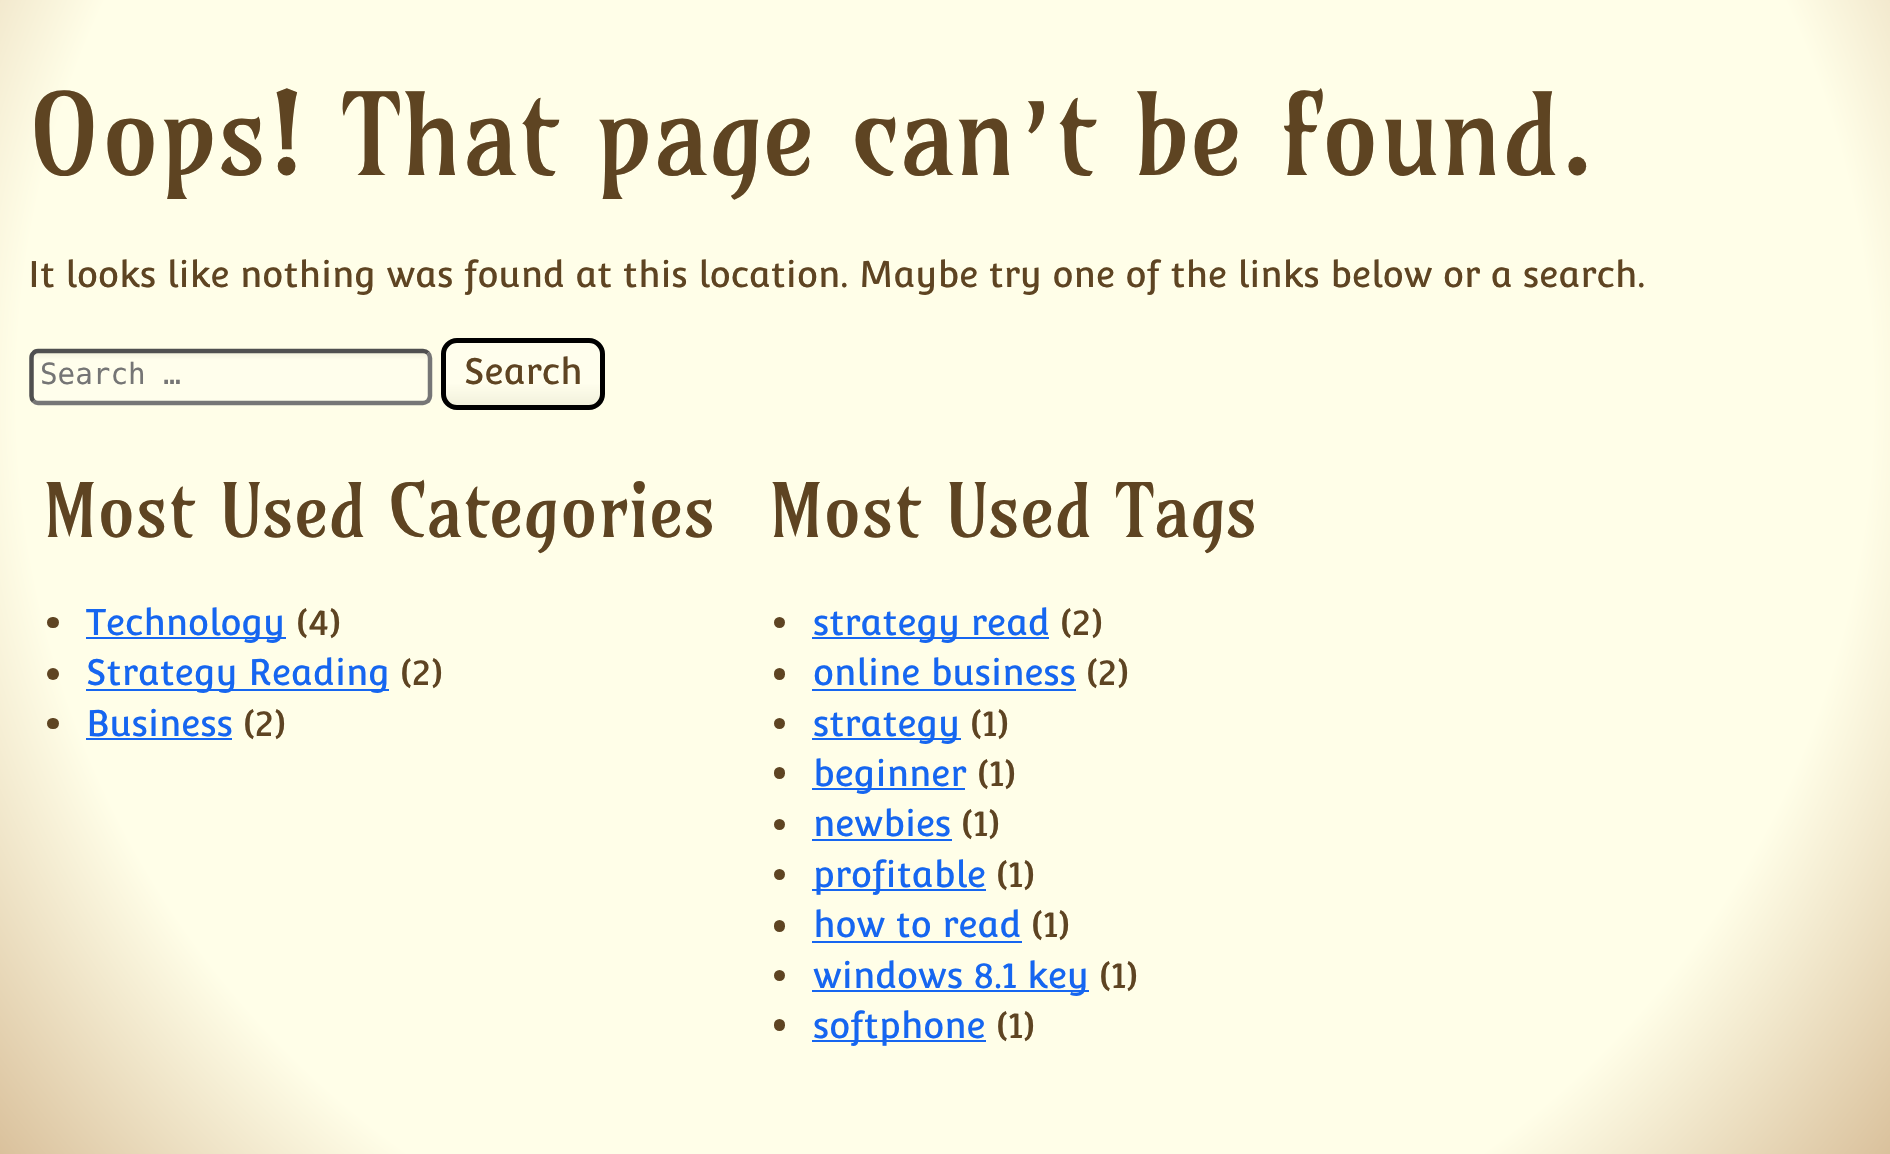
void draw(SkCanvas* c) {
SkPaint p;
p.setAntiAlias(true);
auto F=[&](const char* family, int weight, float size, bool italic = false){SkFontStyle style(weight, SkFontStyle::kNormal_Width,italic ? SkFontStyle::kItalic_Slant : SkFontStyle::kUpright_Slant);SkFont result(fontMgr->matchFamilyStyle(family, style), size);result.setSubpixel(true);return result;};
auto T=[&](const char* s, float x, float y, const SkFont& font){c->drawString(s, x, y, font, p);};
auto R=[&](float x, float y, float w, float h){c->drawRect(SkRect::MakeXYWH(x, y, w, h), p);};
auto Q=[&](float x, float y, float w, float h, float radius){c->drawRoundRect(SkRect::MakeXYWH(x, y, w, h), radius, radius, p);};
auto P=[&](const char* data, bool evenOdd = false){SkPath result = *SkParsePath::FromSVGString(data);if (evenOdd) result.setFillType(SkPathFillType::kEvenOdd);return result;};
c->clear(0xffffffff);
{
const SkColor colors[] = {0xfffffee8,0xffd2b48c};
const float stops[] = {.73,1};
p.setShader(SkGradientShader::MakeRadial({945,396}, 1271, colors, stops, 2, SkTileMode::kClamp));
p.setAlpha(255);
}
R(0,0,1890,1154);
auto f1 = F("Amarante",400,112.1);
p.setShader(nullptr);
p.setColor(0xff5e4422);
T("Oops! That page can’t be found.",28,175,f1);
auto f2 = F("Convergence",400,36);
T("It looks like nothing was found at this location. Maybe try one of the links below or a search.",28,287,f2);
c->save();
c->clipPath(P("M38 349h385c5 0 9 4 9 9v38c0 5-4 9-9 9h-385c-5 0-9-4-9-9v-38c0-5 4-9 9-9z"),true);
{
const SkColor colors[] = {0xfffffeec,0xfff2f1dc};
const float stops[] = {.85,1};
const SkPoint ends[] = {{231,401}, {231,353}};
p.setShader(SkGradientShader::MakeLinear(ends, colors, stops, 2, SkTileMode::kClamp));
p.setAlpha(255);
}
R(29,353,403,48);
c->restore();
p.setStroke(true);
p.setStrokeWidth(4.5);
p.setShader(nullptr);
p.setColor(0xff767676);
c->drawPath(P("M428 353c1 1 2 3 2 5v38c0 2-1 3.5-2 5c-1.5 1-3 2-5 2h-385c-1.5 0-3.5-1-4.5-2"),p);
p.setColor(0xff4f4f4f);
c->drawPath(P("M33.5 401c-1.5-1.5-2-3-2-5v-38c0-2 .5-4 2-5c1-1.5 3-2 4.5-2h385c2 0 3.5 .5 5 2"),p);
auto f3 = F("DejaVu Sans Mono",400,29.25);
p.setStroke(false);
p.setColor(0xff757575);
T("Search …",40,384,f3);
c->save();
c->clipPath(P("M457 338h132c9 0 16 7 16 16v40c0 9-7 16-16 16h-132c-9 0-16-7-16-16v-40c0-9 7-16 16-16z"),true);
{
const SkColor colors[] = {0xfffffeed,0xfff2f1dc};
const float stops[] = {.65,1};
const SkPoint ends[] = {{523,342}, {523,405}};
p.setShader(SkGradientShader::MakeLinear(ends, colors, stops, 2, SkTileMode::kClamp));
p.setAlpha(255);
}
R(441,342,164,63);
c->restore();
p.setStroke(true);
p.setStrokeWidth(5);
p.setShader(nullptr);
p.setColor(0xff000000);
c->drawRoundRect(SkRect::MakeXYWH(443.5,340.5,159,67),13.5,13.5,p);
p.setStroke(false);
p.setColor(0xff5e4422);
T("Search",464,384,f2);
auto f4 = F("Amarante",400,73.5);
T("Most Used Categories",43,537,f4);
Q(47,617,12,11,5.5);
p.setColor(0xff1666f0);
R(86,637,200,2);
T("Technology",86,635,f2);
p.setColor(0xff5e4422);
T("(4)",296,635,f2);
c->drawCircle(53,674,6,p);
p.setColor(0xff1666f0);
R(86,689,303,2);
T("Strategy Reading",86,685,f2);
p.setColor(0xff5e4422);
T("(2)",400,685,f2);
Q(47,718,12,11,5.5);
p.setColor(0xff1666f0);
T("Business",86,736,f2);
R(86,738,146,2);
p.setColor(0xff5e4422);
T("(2)",243,736,f2);
T("Most Used Tags",769,537,f4);
c->drawCircle(779.5,622.5,5.5,p);
p.setColor(0xff1666f0);
R(812,637,237,2);
T("strategy read",813,635,f2);
p.setColor(0xff5e4422);
T("(2)",1060,635,f2);
Q(774,668,11,12,5.5);
p.setColor(0xff1666f0);
T("online business",813,685,f2);
R(812,689,264,2);
p.setColor(0xff5e4422);
T("(2)",1086,685,f2);
c->drawCircle(779.5,723.5,5.5,p);
p.setColor(0xff1666f0);
R(812,738,149,2);
T("strategy",813,736,f2);
p.setColor(0xff5e4422);
T("(1)",970,736,f2);
Q(774,767,11,12,5.5);
p.setColor(0xff1666f0);
R(812,788,153,2);
T("beginner",813,786,f2);
p.setColor(0xff5e4422);
T("(1)",977,786,f2);
c->drawCircle(779.5,824.5,5.5,p);
p.setColor(0xff1666f0);
T("newbies",813,836,f2);
R(812,839,140,2);
p.setColor(0xff5e4422);
T("(1)",961,836,f2);
c->drawCircle(779.5,874.5,5.5,p);
p.setColor(0xff1666f0);
R(812,889,174,2);
T("profitable",813,887,f2);
p.setColor(0xff5e4422);
T("(1)",996,887,f2);
Q(774,920,11,12,5.5);
p.setColor(0xff1666f0);
T("how to read",813,937,f2);
R(812,941,210,2);
p.setColor(0xff5e4422);
T("(1)",1031,937,f2);
c->drawCircle(779.5,975.5,5.5,p);
p.setColor(0xff1666f0);
R(812,990,277,2);
T("windows 8.1 key",813,988,f2);
p.setColor(0xff5e4422);
T("(1)",1099,988,f2);
Q(774,1019,11,12,5.5);
p.setColor(0xff1666f0);
R(812,1040,174,2);
T("softphone",813,1038,f2);
p.setColor(0xff5e4422);
T("(1)",996,1038,f2);
}
